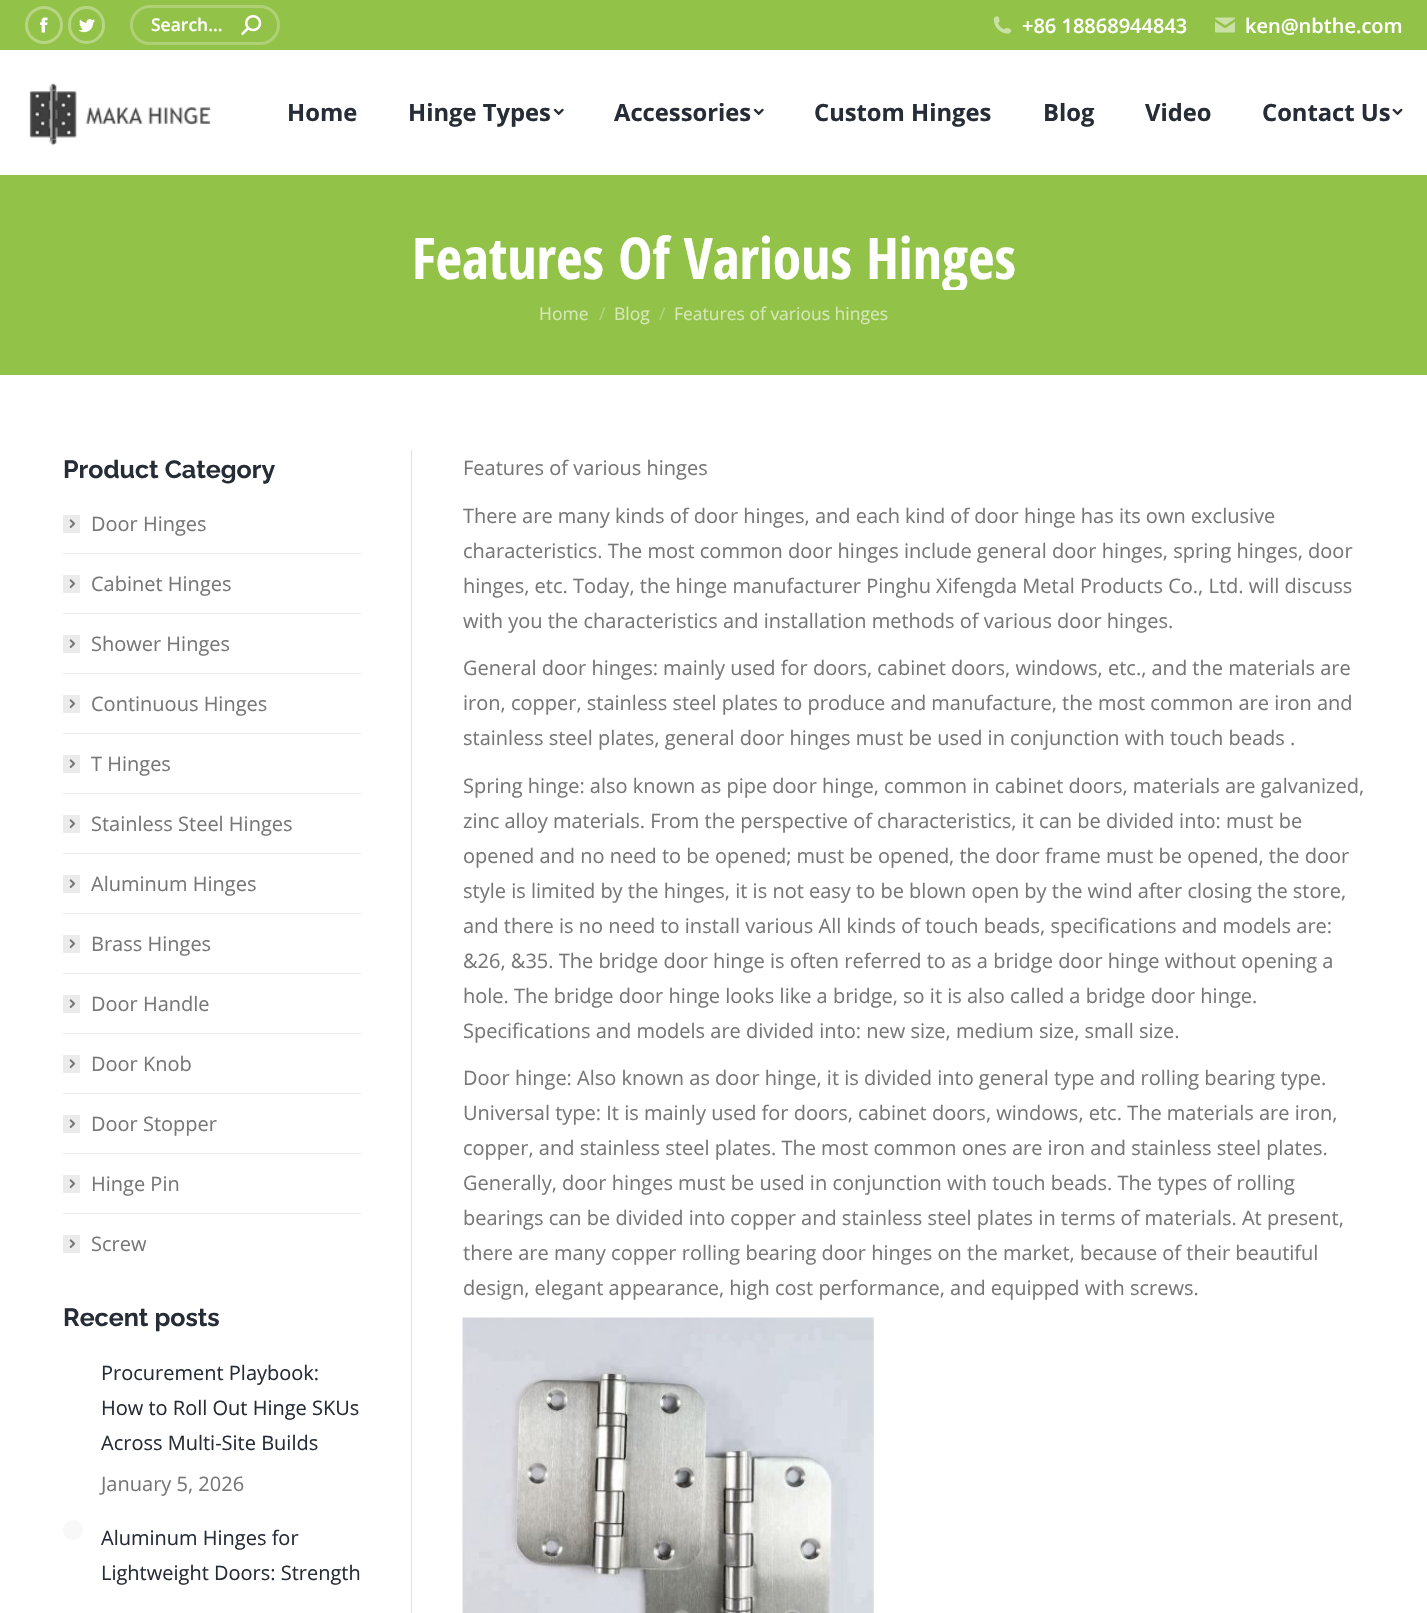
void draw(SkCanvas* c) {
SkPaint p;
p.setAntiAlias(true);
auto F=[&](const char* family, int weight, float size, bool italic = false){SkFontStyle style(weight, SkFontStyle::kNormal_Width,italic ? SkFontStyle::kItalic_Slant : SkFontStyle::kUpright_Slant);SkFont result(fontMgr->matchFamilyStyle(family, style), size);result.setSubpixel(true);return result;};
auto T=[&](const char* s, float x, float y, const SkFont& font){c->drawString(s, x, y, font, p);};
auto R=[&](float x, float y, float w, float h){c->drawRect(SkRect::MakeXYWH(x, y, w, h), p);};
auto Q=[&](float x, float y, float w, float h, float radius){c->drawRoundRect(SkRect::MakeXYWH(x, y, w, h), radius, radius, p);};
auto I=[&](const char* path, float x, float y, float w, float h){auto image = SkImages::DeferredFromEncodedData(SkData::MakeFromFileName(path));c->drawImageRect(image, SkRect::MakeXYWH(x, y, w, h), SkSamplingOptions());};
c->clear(0xffffffff);
p.setColor(0xff93c248);
R(0,0,1427,50);
p.setStroke(true);
p.setStrokeWidth(3);
p.setColor(0xffb6d683);
c->drawCircle(44,25,17.5,p);
I("1.png",40,17,8,16);
c->drawRoundRect(SkRect::MakeXYWH(69.5,7.5,34,35),17,17,p);
I("2.png",79,19,16,14);
p.setColor(0xffaed176);
c->drawRoundRect(SkRect::MakeXYWH(131.5,6.5,147,37),18.5,18.5,p);
auto f1 = F("Open Sans",600,17.5);
p.setStroke(false);
p.setColor(0xffffffff);
T("Search...",151,31,f1);
I("3.png",241,15,21,20);
I("4.png",993,16,19,18);
auto f2 = F("Open Sans",600,20);
T("+86 18868944843",1022,33,f2);
I("5.png",1215,17,20,16);
T("ken@nbthe.com",1245,33,f2);
I("6.png",29,83,182,63);
auto f3 = F("Open Sans",700,23.75);
p.setColor(0xff262d37);
T("Home",287,121,f3);
T("Hinge Types",408,121,f3);
I("7.png",553,108,11,7);
T("Accessories",614,121,f3);
I("7.png",753,108,11,7);
T("Custom Hinges",814,121,f3);
T("Blog",1043,121,f3);
T("Video",1145,121,f3);
T("Contact Us",1262,121,f3);
I("8.png",1392,108,11,7);
p.setColor(0xff93c248);
R(0,175,1427,200);
c->save();
c->clipRect(SkRect::MakeXYWH(411,223,605,67));
auto f4 = F("Open Sans Condensed",700,57.5);
p.setColor(0xffffffff);
T("Features Of Various Hinges",412,279,f4);
c->restore();
auto f5 = F("Open Sans",400,17.5);
p.setColor(0xffd4e7b6);
T("Home",539,320,f5);
p.setColor(0xffb4d57f);
T("/",599,320,f5);
p.setColor(0xffd4e7b6);
T("Blog",614,320,f5);
p.setColor(0xffb4d57f);
T("/",659,320,f5);
p.setColor(0xffd4e7b6);
T("Features of various hinges",674,320,f5);
p.setColor(0xffe2e2e2);
R(411,450,1,1163);
auto f6 = F("Raleway",700,25);
p.setColor(0xff262d37);
T("Product Category",63,478,f6);
p.setColor(0xffebebeb);
Q(63,515,17,18,1);
I("9.png",69,519,7,9);
auto f7 = F("Open Sans",400,20);
p.setColor(0xff777777);
T("Door Hinges",91,531,f7);
p.setColor(0xffebebeb);
R(63,553,298,1);
Q(63,575,17,18,1);
I("9.png",69,579,7,9);
p.setColor(0xff777777);
T("Cabinet Hinges",91,591,f7);
p.setColor(0xffebebeb);
R(63,613,298,1);
Q(63,635,17,18,1);
I("9.png",69,639,7,9);
p.setColor(0xff777777);
T("Shower Hinges",91,651,f7);
p.setColor(0xffebebeb);
R(63,673,298,1);
Q(63,695,17,18,1);
I("9.png",69,699,7,9);
p.setColor(0xff777777);
T("Continuous Hinges",91,711,f7);
p.setColor(0xffebebeb);
R(63,733,298,1);
Q(63,755,17,18,1);
I("9.png",69,759,7,9);
p.setColor(0xff777777);
T("T Hinges",91,771,f7);
p.setColor(0xffebebeb);
R(63,793,298,1);
Q(63,815,17,18,1);
I("9.png",69,819,7,9);
p.setColor(0xff777777);
T("Stainless Steel Hinges",91,831,f7);
p.setColor(0xffebebeb);
R(63,853,298,1);
Q(63,875,17,18,1);
I("9.png",69,879,7,9);
p.setColor(0xff777777);
T("Aluminum Hinges",91,891,f7);
p.setColor(0xffebebeb);
R(63,913,298,1);
Q(63,935,17,18,1);
I("9.png",69,939,7,9);
p.setColor(0xff777777);
T("Brass Hinges",91,951,f7);
p.setColor(0xffebebeb);
R(63,973,298,1);
Q(63,995,17,18,1);
I("9.png",69,999,7,9);
p.setColor(0xff777777);
T("Door Handle",91,1011,f7);
p.setColor(0xffebebeb);
R(63,1033,298,1);
Q(63,1055,17,18,1);
I("9.png",69,1059,7,9);
p.setColor(0xff777777);
T("Door Knob",91,1071,f7);
p.setColor(0xffebebeb);
R(63,1093,298,1);
Q(63,1115,17,18,1);
I("9.png",69,1119,7,9);
p.setColor(0xff777777);
T("Door Stopper",91,1131,f7);
p.setColor(0xffebebeb);
R(63,1153,298,1);
Q(63,1175,17,18,1);
I("9.png",69,1179,7,9);
p.setColor(0xff777777);
T("Hinge Pin",91,1191,f7);
p.setColor(0xffebebeb);
R(63,1213,298,1);
Q(63,1235,17,18,1);
I("9.png",69,1239,7,9);
p.setColor(0xff777777);
T("Screw",91,1251,f7);
p.setColor(0xff262d37);
T("Recent posts",63,1326,f6);
T("Procurement Playbook:",101,1380,f7);
T("How to Roll Out Hinge SKUs",101,1415,f7);
T("Across Multi-Site Builds",101,1450,f7);
p.setColor(0xff777777);
T("January 5, 2026",101,1491,f7);
p.setColor(0xfff8f8f8);
c->drawCircle(73,1530,10,p);
p.setColor(0xff262d37);
T("Aluminum Hinges for",101,1545,f7);
T("Lightweight Doors: Strength",101,1580,f7);
p.setColor(0xff777777);
T("Features of various hinges",463,475,f7);
T("There are many kinds of door hinges, and each kind of door hinge has its own exclusive",463,523,f7);
T("characteristics. The most common door hinges include general door hinges, spring hinges, door",463,558,f7);
T("hinges, etc. Today, the hinge manufacturer Pinghu Xifengda Metal Products Co., Ltd. will discuss",463,593,f7);
T("with you the characteristics and installation methods of various door hinges.",463,628,f7);
T("General door hinges: mainly used for doors, cabinet doors, windows, etc., and the materials are",463,675,f7);
T("iron, copper, stainless steel plates to produce and manufacture, the most common are iron and",463,710,f7);
T("stainless steel plates, general door hinges must be used in conjunction with touch beads .",463,745,f7);
T("Spring hinge: also known as pipe door hinge, common in cabinet doors, materials are galvanized,",463,793,f7);
T("zinc alloy materials. From the perspective of characteristics, it can be divided into: must be",463,828,f7);
T("opened and no need to be opened; must be opened, the door frame must be opened, the door",463,863,f7);
T("style is limited by the hinges, it is not easy to be blown open by the wind after closing the store,",463,898,f7);
T("and there is no need to install various All kinds of touch beads, specifications and models are:",463,933,f7);
T("&26, &35. The bridge door hinge is often referred to as a bridge door hinge without opening a",463,968,f7);
T("hole. The bridge door hinge looks like a bridge, so it is also called a bridge door hinge.",463,1003,f7);
T("Specifications and models are divided into: new size, medium size, small size.",463,1038,f7);
T("Door hinge: Also known as door hinge, it is divided into general type and rolling bearing type.",463,1085,f7);
T("Universal type: It is mainly used for doors, cabinet doors, windows, etc. The materials are iron,",463,1120,f7);
T("copper, and stainless steel plates. The most common ones are iron and stainless steel plates.",463,1155,f7);
T("Generally, door hinges must be used in conjunction with touch beads. The types of rolling",463,1190,f7);
T("bearings can be divided into copper and stainless steel plates in terms of materials. At present,",463,1225,f7);
T("there are many copper rolling bearing door hinges on the market, because of their beautiful",463,1260,f7);
T("design, elegant appearance, high cost performance, and equipped with screws.",463,1295,f7);
I("10.png",462,1317,412,296);
}
